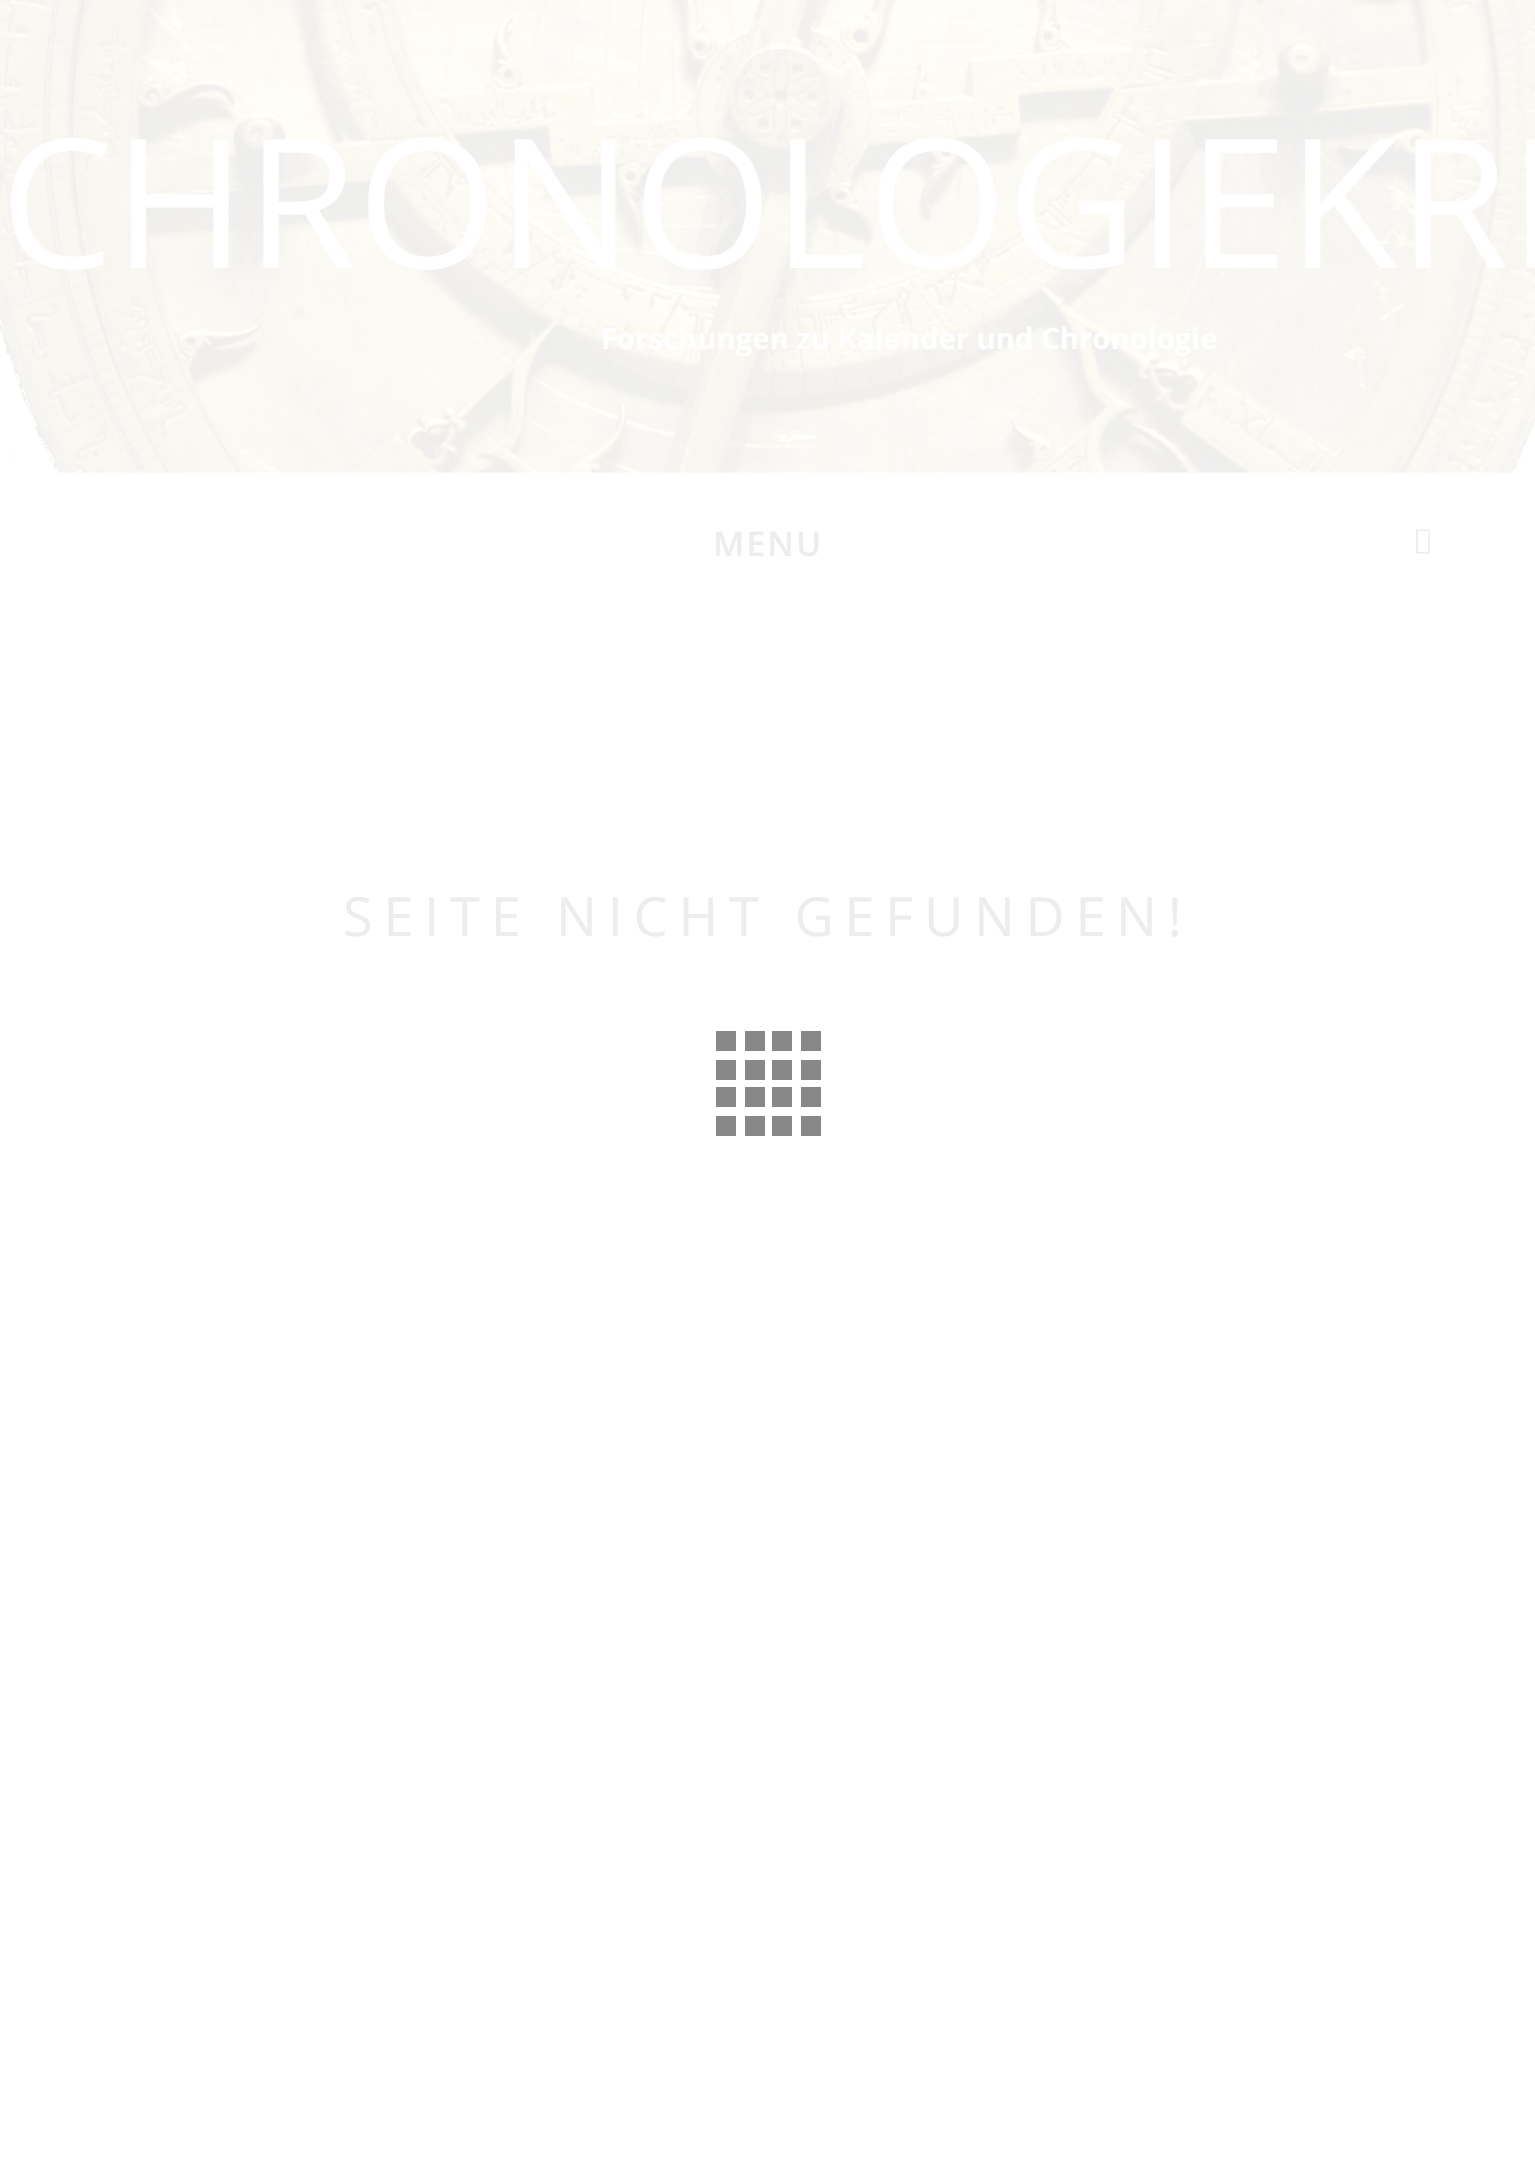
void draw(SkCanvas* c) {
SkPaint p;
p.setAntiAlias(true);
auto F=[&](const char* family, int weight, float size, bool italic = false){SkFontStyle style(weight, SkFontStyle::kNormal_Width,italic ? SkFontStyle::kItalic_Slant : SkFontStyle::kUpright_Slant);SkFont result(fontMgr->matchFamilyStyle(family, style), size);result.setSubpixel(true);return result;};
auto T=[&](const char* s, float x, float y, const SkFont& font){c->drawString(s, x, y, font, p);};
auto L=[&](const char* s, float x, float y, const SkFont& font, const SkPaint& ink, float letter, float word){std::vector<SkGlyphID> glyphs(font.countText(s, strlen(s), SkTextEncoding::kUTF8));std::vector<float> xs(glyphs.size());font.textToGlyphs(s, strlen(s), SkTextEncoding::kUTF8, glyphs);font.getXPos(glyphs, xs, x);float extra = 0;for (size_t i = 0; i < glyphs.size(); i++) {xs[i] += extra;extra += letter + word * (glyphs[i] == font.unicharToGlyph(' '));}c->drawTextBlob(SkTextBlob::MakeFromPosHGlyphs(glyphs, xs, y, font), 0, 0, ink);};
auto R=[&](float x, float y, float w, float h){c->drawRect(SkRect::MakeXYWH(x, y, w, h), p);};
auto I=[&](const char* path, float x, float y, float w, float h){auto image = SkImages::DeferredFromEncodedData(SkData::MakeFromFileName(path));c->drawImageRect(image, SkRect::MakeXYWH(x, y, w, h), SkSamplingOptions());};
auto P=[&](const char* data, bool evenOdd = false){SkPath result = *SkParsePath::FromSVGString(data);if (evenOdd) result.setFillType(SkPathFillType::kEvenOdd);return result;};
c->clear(0xffffffff);
I("1.png",0,0,1535,473);
auto f1 = F("Open Sans",400,180);
p.setColor(0xffffffff);
T("CHRONOLOGIEKRI",0,268,f1);
auto f2 = F("Open Sans",700,29.25);
T("Forschungen zu Kalender und Chronologie",601,349,f2);
auto f3 = F("Open Sans",600,34);
p.setColor(0xffededed);
L("MENU",713,556,f3,p,2,0);
c->drawPath(P("M1416 553.5v-24h14v24zm2-1.5h10.5v-21h-10.5z"),p);
auto f4 = F("Open Sans",400,54);
L("SEITE NICHT GEFUNDEN!",343,936,f4,p,10.8,0);
p.setColor(0xff878787);
R(716,1031,20,20);
R(745,1031,20,20);
R(772,1031,20,20);
R(801,1031,20,20);
R(716,1060,20,20);
R(745,1060,20,20);
R(772,1060,20,20);
R(801,1060,20,20);
R(716,1087,20,20);
R(745,1087,20,20);
R(772,1087,20,20);
p.setColor(0x96333333);
R(801,1087,20,20);
R(716,1116,20,20);
R(745,1116,20,20);
R(772,1116,20,20);
R(801,1116,20,20);
}
